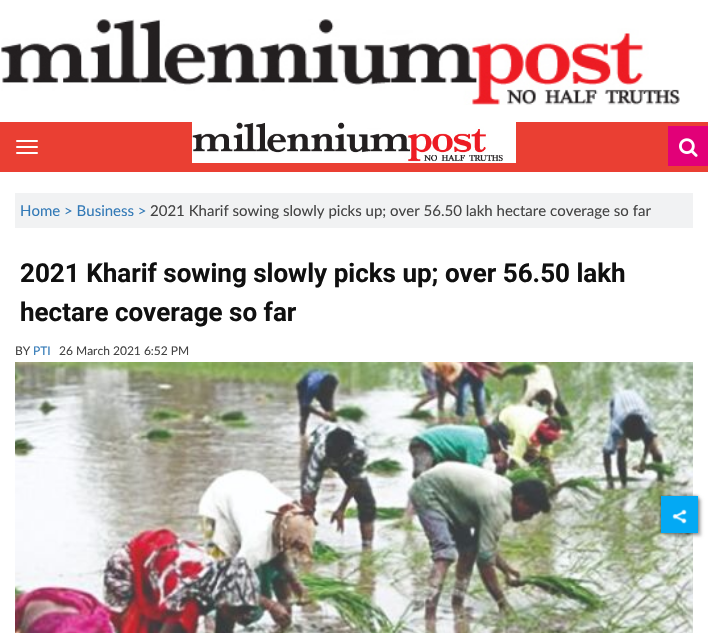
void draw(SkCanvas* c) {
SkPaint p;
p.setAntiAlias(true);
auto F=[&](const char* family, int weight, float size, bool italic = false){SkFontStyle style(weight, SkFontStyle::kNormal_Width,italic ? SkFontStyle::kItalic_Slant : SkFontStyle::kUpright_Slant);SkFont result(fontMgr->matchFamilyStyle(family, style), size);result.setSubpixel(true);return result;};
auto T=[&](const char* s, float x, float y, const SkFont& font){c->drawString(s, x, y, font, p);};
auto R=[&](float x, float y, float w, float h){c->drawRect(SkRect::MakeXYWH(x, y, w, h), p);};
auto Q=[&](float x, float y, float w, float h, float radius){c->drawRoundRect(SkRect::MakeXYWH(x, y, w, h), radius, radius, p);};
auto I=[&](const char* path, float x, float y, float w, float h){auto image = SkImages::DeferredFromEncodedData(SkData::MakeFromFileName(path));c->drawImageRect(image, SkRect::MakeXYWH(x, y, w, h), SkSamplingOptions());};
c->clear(0xffffffff);
I("1.png",1,19,679,86);
p.setColor(0xffea3f33);
R(0,122,708,50);
p.setColor(0xffffffff);
Q(16,140,22,2,1);
Q(16,146,22,2,1);
Q(16,152,22,2,1);
I("2.png",192,122,324,41);
p.setColor(0xffe20078);
R(668,126,40,40);
I("3.png",679,138,19,19);
p.setColor(0xfff1f2f3);
R(15,193,678,35);
auto f1 = F("Lato",400,15);
p.setColor(0xff337ab7);
T("Home > Business >",20,216,f1);
p.setColor(0xff434343);
T("2021 Kharif sowing slowly picks up; over 56.50 lakh hectare coverage so far",150,216,f1);
auto f2 = F("Roboto",700,26);
p.setColor(0xff101010);
T("2021 Kharif sowing slowly picks up; over 56.50 lakh",20,282,f2);
T("hectare coverage so far",20,321,f2);
auto f3 = F("Lato",400,12);
p.setColor(0xff434343);
T("BY",15,355,f3);
p.setColor(0xff337ab7);
T("PTI",33,355,f3);
p.setColor(0xff434343);
T("26 March 2021 6:52 PM",59,355,f3);
I("4.png",15,362,678,271);
p.setColor(0x40000000);
p.setMaskFilter(SkMaskFilter::MakeBlur(kNormal_SkBlurStyle, 1.5));
c->drawRect(SkRect::MakeXYWH(664,499,37,37),p);
p.setMaskFilter(nullptr);
p.setColor(0x80000000);
p.setMaskFilter(SkMaskFilter::MakeBlur(kNormal_SkBlurStyle, 1.5));
c->drawRect(SkRect::MakeXYWH(661,496,37,37),p);
p.setMaskFilter(nullptr);
p.setColor(0xff03a9f4);
R(661,496,37,37);
I("5.png",672,509,15,15);
}
